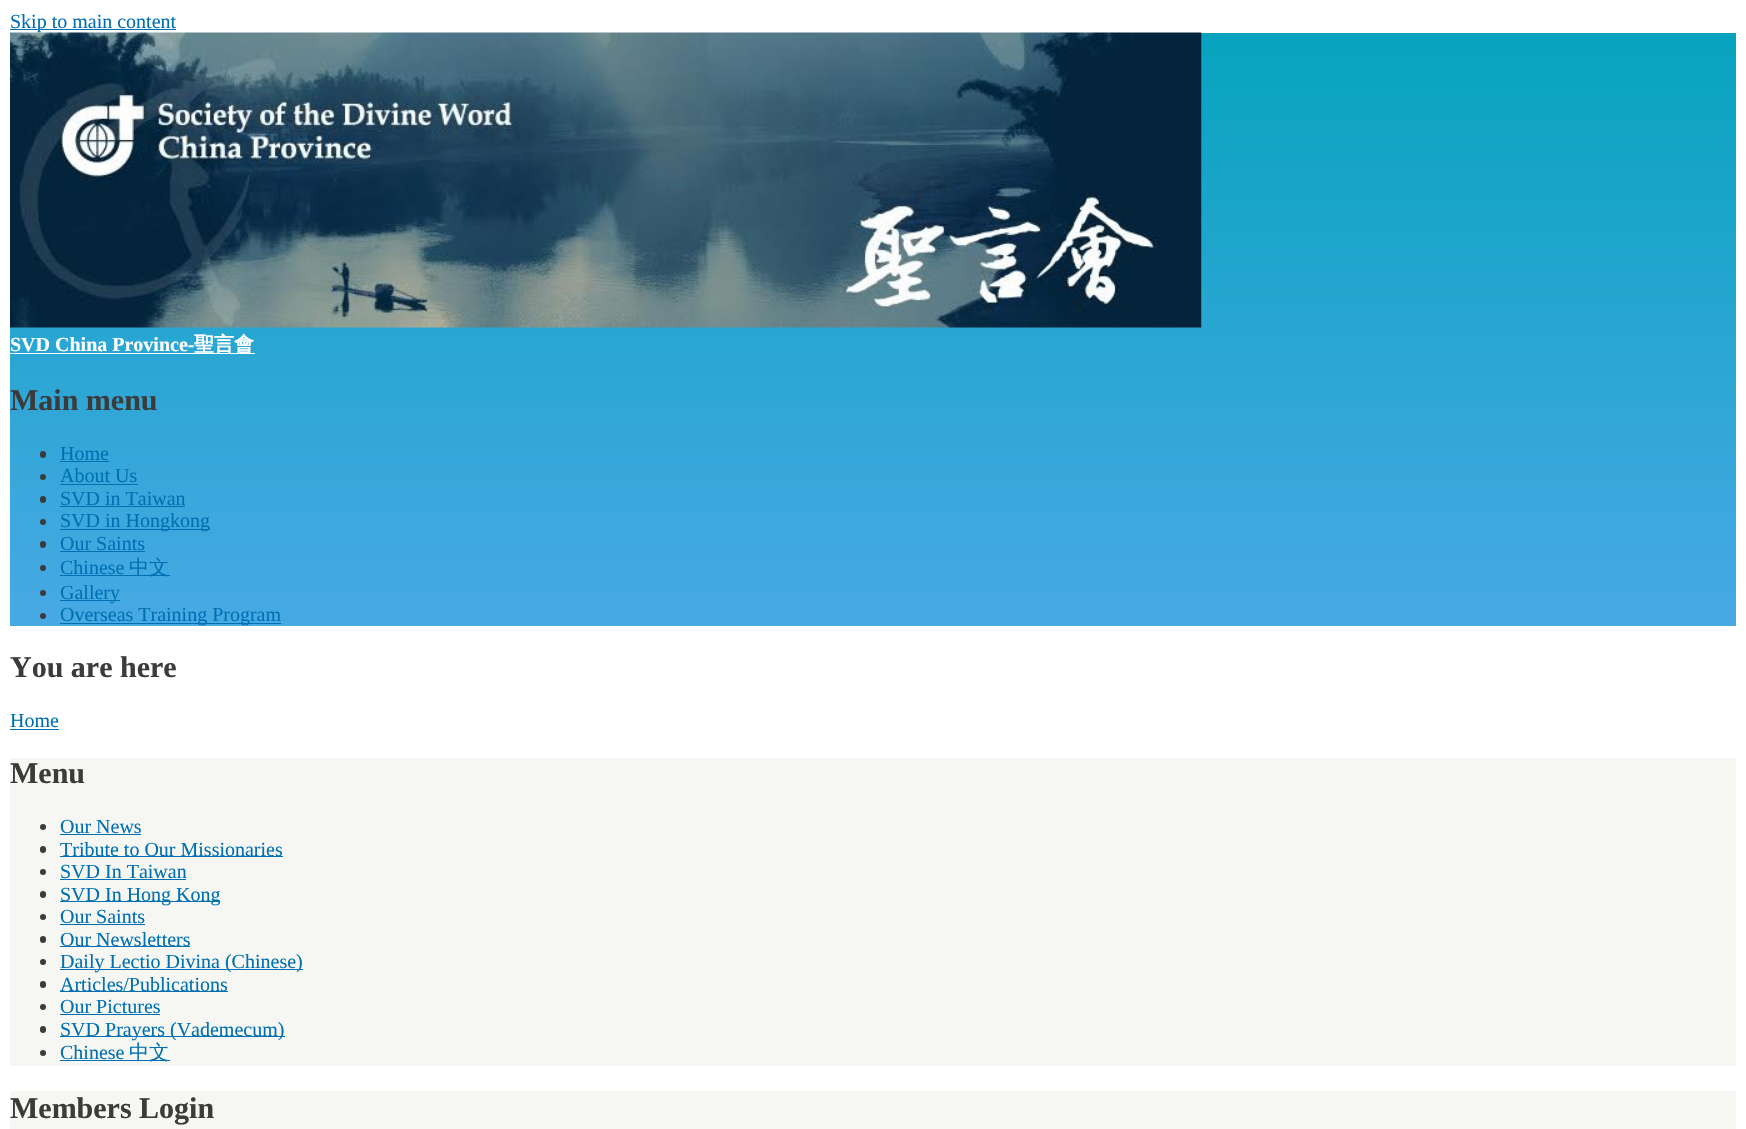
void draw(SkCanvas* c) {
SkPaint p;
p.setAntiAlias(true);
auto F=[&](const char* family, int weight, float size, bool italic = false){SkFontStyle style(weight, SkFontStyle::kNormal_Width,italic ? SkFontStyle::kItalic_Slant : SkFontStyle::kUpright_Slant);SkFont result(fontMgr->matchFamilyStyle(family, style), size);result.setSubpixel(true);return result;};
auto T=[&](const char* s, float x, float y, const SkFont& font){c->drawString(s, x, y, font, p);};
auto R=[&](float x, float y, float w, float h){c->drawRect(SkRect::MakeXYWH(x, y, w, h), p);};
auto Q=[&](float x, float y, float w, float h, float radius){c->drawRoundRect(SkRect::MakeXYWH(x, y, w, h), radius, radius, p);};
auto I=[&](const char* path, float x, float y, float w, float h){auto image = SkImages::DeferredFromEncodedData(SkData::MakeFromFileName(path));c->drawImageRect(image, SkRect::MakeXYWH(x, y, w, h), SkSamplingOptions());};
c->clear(0xffffffff);
p.setColor(0xff0070b3);
R(10,29,166,1);
auto f1 = F("Liberation Serif",400,20);
T("Skip to main content",10,28,f1);
{
const SkColor colors[] = {0xff07a3bf,0xff48a9e4};
const float stops[] = {0,1};
const SkPoint ends[] = {{873,32}, {873,626}};
p.setShader(SkGradientShader::MakeLinear(ends, colors, stops, 2, SkTileMode::kClamp));
p.setAlpha(255);
}
R(10,33,1726,593);
I("1.png",10,32,1192,296);
auto f2 = F("Liberation Serif",700,20);
p.setShader(nullptr);
p.setColor(0xfffffeff);
T("SVD China Province-",10,351,f2);
R(10,353,245,1);
auto f3 = F("WenQuanYi Zen Hei",700,20);
T("聖言會",194,351,f3);
auto f4 = F("Liberation Serif",700,30);
p.setColor(0xff3b3b3b);
T("Main menu",10,410,f4);
Q(40,451,6,7,3);
p.setColor(0xff0070b3);
T("Home",60,460,f1);
R(60,461,49,1);
p.setColor(0xff3b3b3b);
c->drawCircle(43,477,3,p);
p.setColor(0xff0070b3);
T("About Us",60,482,f1);
R(60,484,78,1);
p.setColor(0xff3b3b3b);
Q(40,496,6,7,3);
p.setColor(0xff0070b3);
T("SVD in Taiwan",60,505,f1);
R(60,506,125,1);
p.setColor(0xff3b3b3b);
c->drawCircle(43,522,3,p);
p.setColor(0xff0070b3);
R(60,529,150,1);
T("SVD in Hongkong",60,527,f1);
p.setColor(0xff3b3b3b);
Q(40,541,6,7,3);
p.setColor(0xff0070b3);
T("Our Saints",60,550,f1);
R(60,551,85,1);
p.setColor(0xff3b3b3b);
c->drawCircle(43,568,3,p);
p.setColor(0xff0070b3);
T("Chinese",60,574,f1);
R(60,575,110,1);
auto f5 = F("WenQuanYi Zen Hei",500,20);
T("中文",129,574,f5);
p.setColor(0xff3b3b3b);
c->drawCircle(43,593,3,p);
p.setColor(0xff0070b3);
R(60,600,60,1);
T("Gallery",60,599,f1);
p.setColor(0xff3b3b3b);
c->drawCircle(43,616,3,p);
p.setColor(0xff0070b3);
R(60,623,221,1);
T("Overseas Training Program",60,621,f1);
p.setColor(0xff3b3b3b);
T("You are here",10,677,f4);
p.setColor(0xff0070b3);
T("Home",10,727,f1);
R(10,729,49,1);
p.setColor(0xfff6f6f2);
R(10,758,1726,308);
p.setColor(0xff3b3b3b);
T("Menu",10,783,f4);
c->drawCircle(43,827,3,p);
p.setColor(0xff0070b3);
T("Our News",60,833,f1);
R(60,834,81,1);
p.setColor(0xff3b3b3b);
Q(40,846,6,7,3);
p.setColor(0xff0070b3);
R(60,856,223,1);
T("Tribute to Our Missionaries",60,856,f1);
p.setColor(0xff3b3b3b);
c->drawCircle(43,872,3,p);
p.setColor(0xff0070b3);
T("SVD In Taiwan",60,878,f1);
R(60,879,126,1);
p.setColor(0xff3b3b3b);
Q(40,891,6,7,3);
p.setColor(0xff0070b3);
R(60,901,160,1);
T("SVD In Hong Kong",60,901,f1);
p.setColor(0xff3b3b3b);
c->drawCircle(43,917,3,p);
p.setColor(0xff0070b3);
T("Our Saints",60,923,f1);
R(60,924,85,1);
p.setColor(0xff3b3b3b);
Q(40,936,6,7,3);
p.setColor(0xff0070b3);
R(60,946,130,1);
T("Our Newsletters",60,946,f1);
p.setColor(0xff3b3b3b);
c->drawCircle(43,962,3,p);
p.setColor(0xff0070b3);
R(60,969,243,1);
T("Daily Lectio Divina (Chinese)",60,968,f1);
p.setColor(0xff3b3b3b);
Q(40,981,6,7,3);
p.setColor(0xff0070b3);
R(60,991,168,1);
T("Articles/Publications",60,991,f1);
p.setColor(0xff3b3b3b);
c->drawCircle(43,1007,3,p);
p.setColor(0xff0070b3);
T("Our Pictures",60,1013,f1);
R(60,1014,100,1);
p.setColor(0xff3b3b3b);
Q(40,1026,6,7,3);
p.setColor(0xff0070b3);
R(60,1036,225,1);
T("SVD Prayers (Vademecum)",60,1036,f1);
p.setColor(0xff3b3b3b);
c->drawCircle(43,1053,3,p);
p.setColor(0xff0070b3);
T("Chinese",60,1059,f1);
R(60,1060,110,1);
T("中文",129,1059,f5);
p.setColor(0xfff6f6f2);
R(10,1091,1726,38);
p.setColor(0xff3b3b3b);
T("Members Login",10,1118,f4);
}
